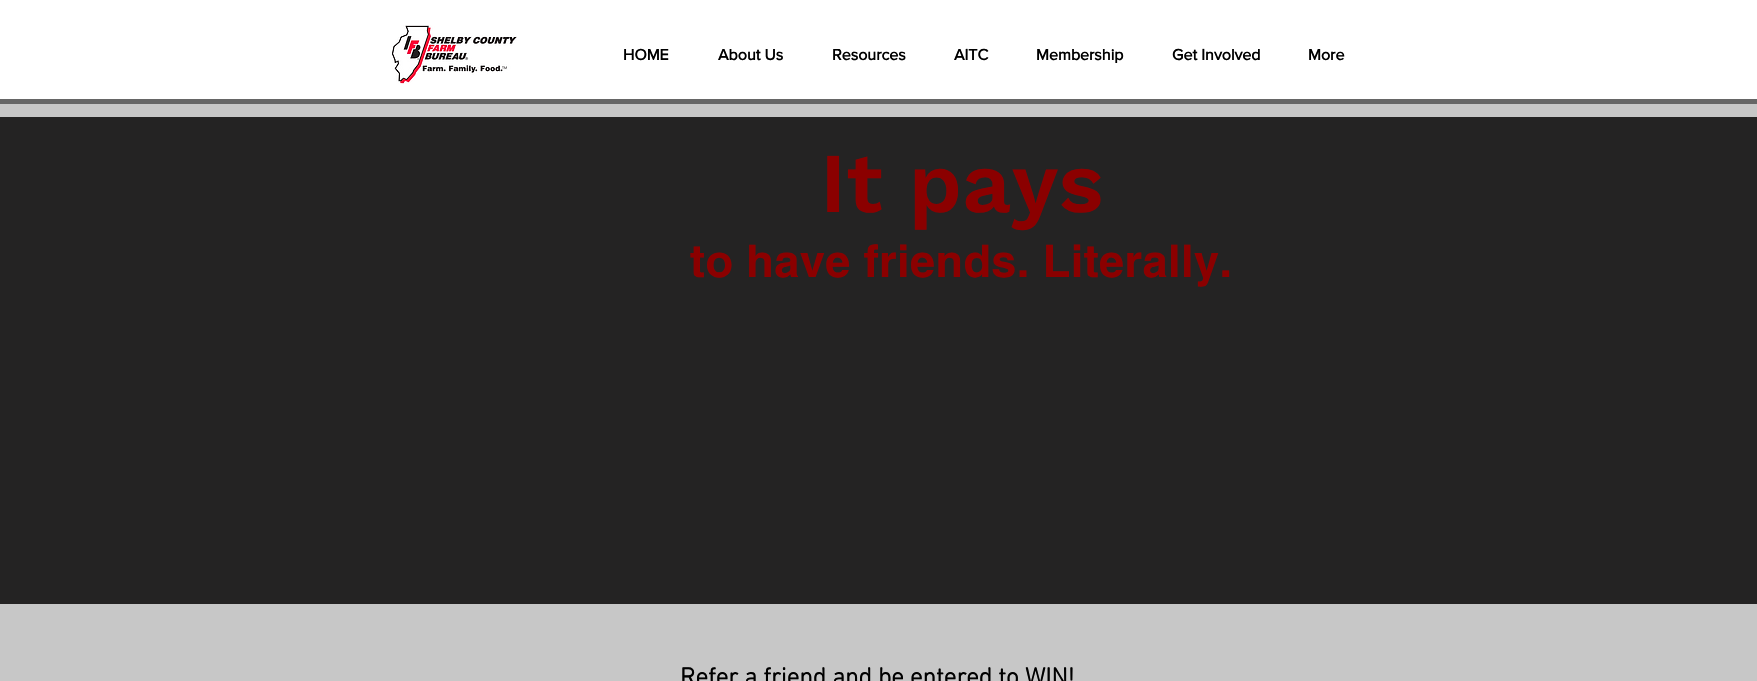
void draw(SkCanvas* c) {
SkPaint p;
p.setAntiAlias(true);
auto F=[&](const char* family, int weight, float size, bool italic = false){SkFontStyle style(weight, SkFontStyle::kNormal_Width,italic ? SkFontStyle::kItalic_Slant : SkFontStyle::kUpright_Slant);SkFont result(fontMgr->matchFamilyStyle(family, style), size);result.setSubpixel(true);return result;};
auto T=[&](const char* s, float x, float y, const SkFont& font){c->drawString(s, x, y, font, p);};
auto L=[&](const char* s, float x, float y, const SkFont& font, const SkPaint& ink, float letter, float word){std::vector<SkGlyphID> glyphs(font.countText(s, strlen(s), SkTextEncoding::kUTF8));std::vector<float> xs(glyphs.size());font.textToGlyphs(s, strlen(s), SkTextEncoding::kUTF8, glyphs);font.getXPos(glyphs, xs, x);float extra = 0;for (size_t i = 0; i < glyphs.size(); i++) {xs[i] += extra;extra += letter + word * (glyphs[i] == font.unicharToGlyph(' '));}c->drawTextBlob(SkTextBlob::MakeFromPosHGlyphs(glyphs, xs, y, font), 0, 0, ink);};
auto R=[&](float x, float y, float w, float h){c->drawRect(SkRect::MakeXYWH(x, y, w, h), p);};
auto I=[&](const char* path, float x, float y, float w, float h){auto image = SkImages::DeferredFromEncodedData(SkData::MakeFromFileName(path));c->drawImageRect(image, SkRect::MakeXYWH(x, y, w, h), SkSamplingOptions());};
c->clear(0xffc7c7c7);
p.setColor(0xffffffff);
R(0,0,1757,99);
p.setColor(0xff666666);
R(0,99,1757,5);
I("1.png",391,25,126,59);
auto f1 = F("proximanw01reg",700,16);
p.setColor(0xff000000);
T("HOME",623,60,f1);
T("About Us",718,60,f1);
T("Resources",832,60,f1);
T("AITC",954,60,f1);
T("Membership",1036,60,f1);
T("Get Involved",1172,60,f1);
T("More",1308,60,f1);
p.setColor(0xff242323);
R(0,117,1757,487);
auto f2 = F("Work Sans",600,85);
p.setColor(0xff8b0000);
T("It pays",820,212,f2);
auto f3 = F("helvetica",700,45);
L("to have friends. Literally.",690,277,f3,p,.45,0);
auto f4 = F("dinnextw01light",700,25);
p.setColor(0xff000000);
T("Refer a friend and be entered to WIN!",680,685,f4);
}
